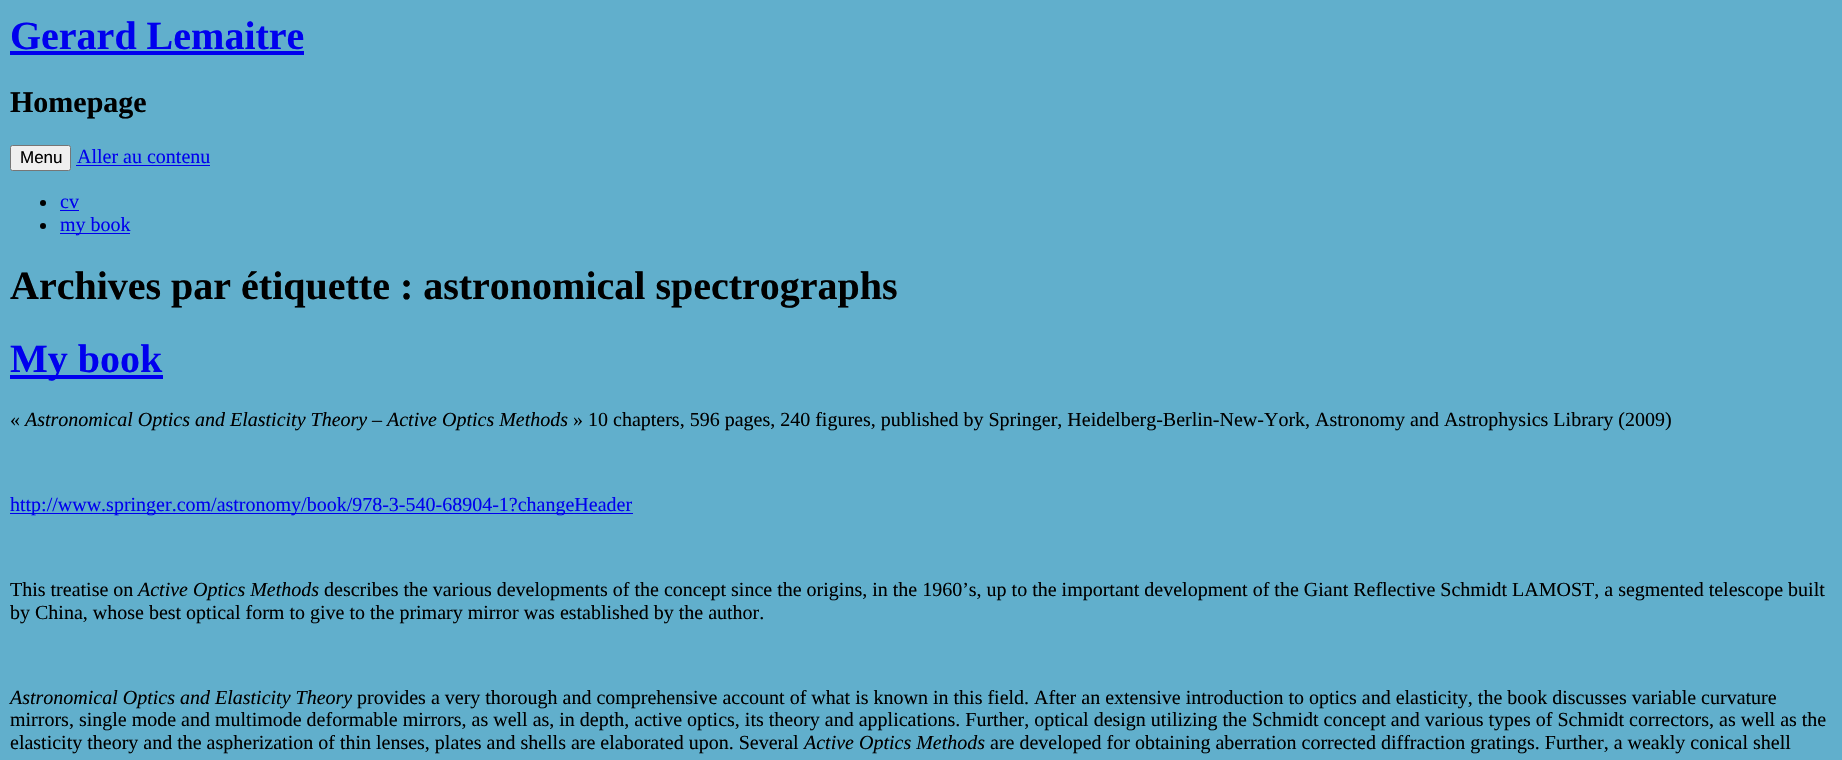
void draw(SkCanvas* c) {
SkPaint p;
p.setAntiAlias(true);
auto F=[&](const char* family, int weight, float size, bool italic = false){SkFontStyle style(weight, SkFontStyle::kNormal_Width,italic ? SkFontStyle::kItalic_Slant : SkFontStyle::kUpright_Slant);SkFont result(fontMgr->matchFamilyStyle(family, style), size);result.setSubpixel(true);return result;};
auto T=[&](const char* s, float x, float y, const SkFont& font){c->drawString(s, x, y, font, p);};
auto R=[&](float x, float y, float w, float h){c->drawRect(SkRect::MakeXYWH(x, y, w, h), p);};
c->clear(0xff61afcc);
auto f1 = F("Liberation Serif",700,40);
p.setColor(0xff0000ee);
T("Gerard Lemaitre",10,49,f1);
R(10,51,294,4);
auto f2 = F("Liberation Serif",700,30);
p.setColor(0xff000000);
T("Homepage",10,112,f2);
p.setColor(0xffefefef);
c->drawRoundRect(SkRect::MakeXYWH(10.5,145.5,60,25),2,2,p);
p.setStroke(true);
p.setStrokeWidth(1);
p.setColor(0xff767676);
c->drawRoundRect(SkRect::MakeXYWH(10.5,145.5,60,25),2,2,p);
auto f3 = F("Liberation Sans",400,17);
p.setStroke(false);
p.setColor(0xff000000);
T("Menu",20,163,f3);
auto f4 = F("Liberation Serif",400,20);
p.setColor(0xff0000ee);
T("Aller au contenu",77,163,f4);
R(76,165,134,1);
p.setColor(0xff000000);
c->drawCircle(43,203,3,p);
p.setColor(0xff0000ee);
T("cv",60,208,f4);
R(60,210,19,1);
p.setColor(0xff000000);
c->drawCircle(43,226,3,p);
p.setColor(0xff0000ee);
R(60,233,70,1);
T("my book",60,231,f4);
p.setColor(0xff000000);
T("Archives par étiquette : astronomical spectrographs",10,299,f1);
p.setColor(0xff0000ee);
R(10,375,153,4);
T("My book",10,372,f1);
p.setColor(0xff000000);
T("«",10,426,f4);
auto f5 = F("Liberation Serif",400,20,true);
T("Astronomical Optics and Elasticity Theory",25,426,f5);
T("–",372,426,f4);
T("Active Optics Methods",387,426,f5);
T("» 10 chapters, 596 pages, 240 figures, published by Springer, Heidelberg-Berlin-New-York, Astronomy and Astrophysics Library (2009)",573,426,f4);
p.setColor(0xff0000ee);
R(10,513,623,1);
T("http://www.springer.com/astronomy/book/978-3-540-68904-1?changeHeader",10,511,f4);
p.setColor(0xff000000);
T("This treatise on",10,596,f4);
T("Active Optics Methods",138,596,f5);
T("describes the various developments of the concept since the origins, in the 1960’s, up to the important development of the Giant Reflective Schmidt LAMOST, a segmented telescope built",324,596,f4);
T("by China, whose best optical form to give to the primary mirror was established by the author.",10,619,f4);
T("Astronomical Optics and Elasticity Theory",10,704,f5);
T("provides a very thorough and comprehensive account of what is known in this field. After an extensive introduction to optics and elasticity, the book discusses variable curvature",357,704,f4);
T("mirrors, single mode and multimode deformable mirrors, as well as, in depth, active optics, its theory and applications. Further, optical design utilizing the Schmidt concept and various types of Schmidt correctors, as well as the",10,726,f4);
T("elasticity theory and the aspherization of thin lenses, plates and shells are elaborated upon. Several",10,749,f4);
T("Active Optics Methods",804,749,f5);
T("are developed for obtaining aberration corrected diffraction gratings. Further, a weakly conical shell",990,749,f4);
}
